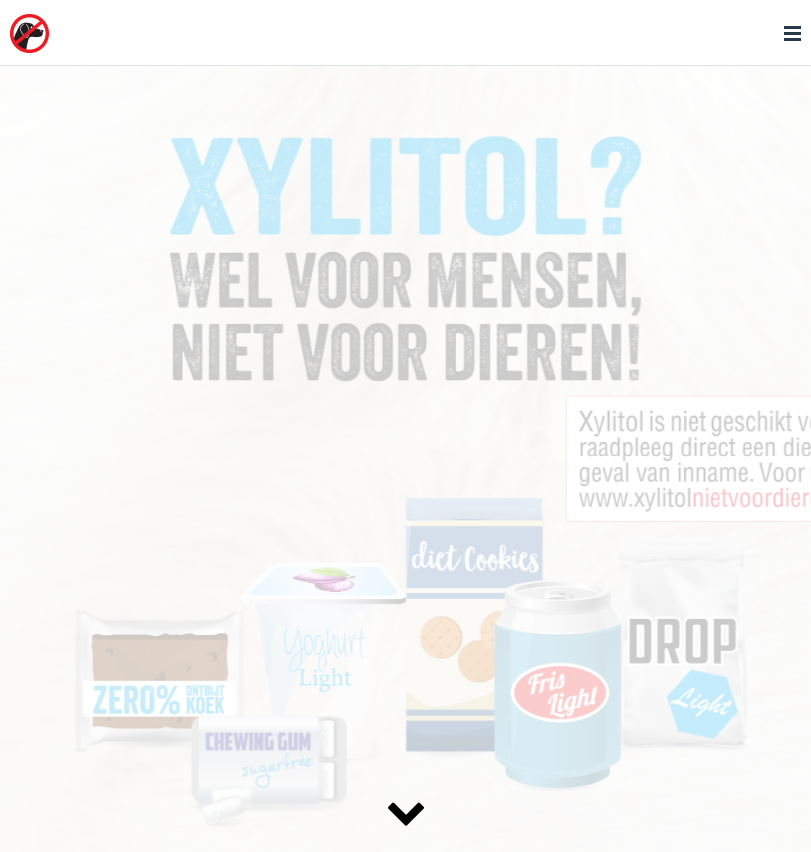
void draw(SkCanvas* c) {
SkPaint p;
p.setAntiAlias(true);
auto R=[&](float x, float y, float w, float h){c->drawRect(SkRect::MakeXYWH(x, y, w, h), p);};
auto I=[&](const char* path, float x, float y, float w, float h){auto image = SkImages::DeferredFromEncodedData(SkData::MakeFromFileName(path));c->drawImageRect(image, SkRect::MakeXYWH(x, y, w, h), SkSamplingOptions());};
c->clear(0xffffffff);
I("1.png",0,0,811,852);
I("2.png",388,802,36,24);
p.setColor(0xf2ffffff);
R(0,0,811,65);
p.setColor(0xffdfe3e6);
R(0,65,811,1);
I("3.png",10,14,39,39);
p.setColor(0xff27394a);
R(784,26,17,3);
R(784,32,17,3);
R(784,38,17,3);
}
